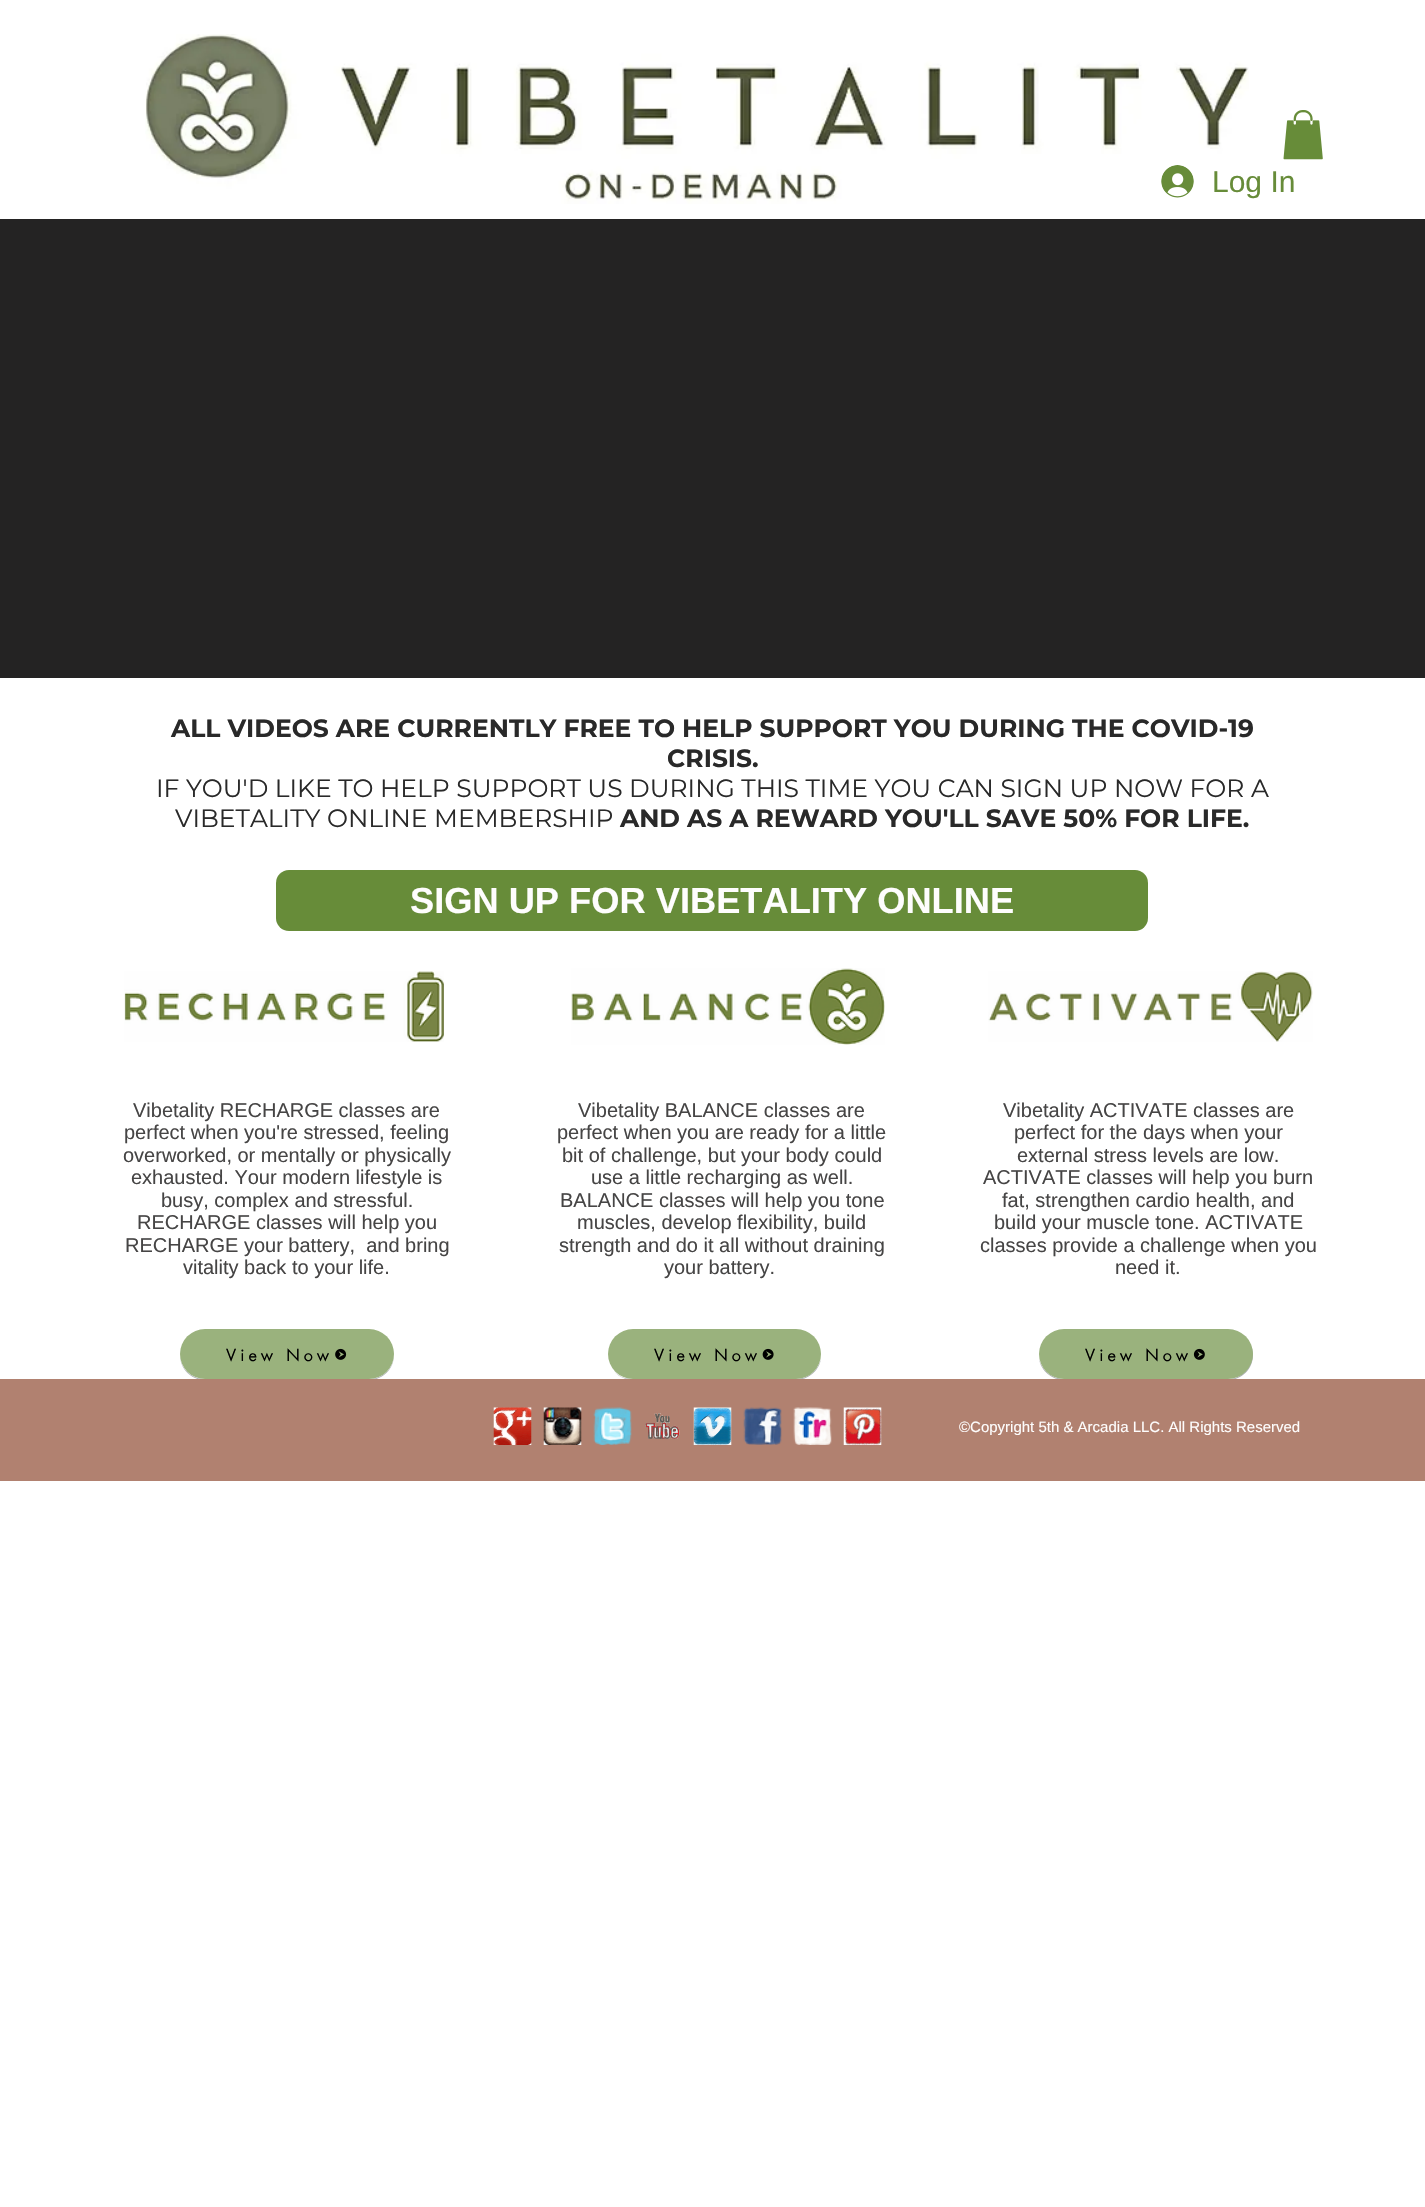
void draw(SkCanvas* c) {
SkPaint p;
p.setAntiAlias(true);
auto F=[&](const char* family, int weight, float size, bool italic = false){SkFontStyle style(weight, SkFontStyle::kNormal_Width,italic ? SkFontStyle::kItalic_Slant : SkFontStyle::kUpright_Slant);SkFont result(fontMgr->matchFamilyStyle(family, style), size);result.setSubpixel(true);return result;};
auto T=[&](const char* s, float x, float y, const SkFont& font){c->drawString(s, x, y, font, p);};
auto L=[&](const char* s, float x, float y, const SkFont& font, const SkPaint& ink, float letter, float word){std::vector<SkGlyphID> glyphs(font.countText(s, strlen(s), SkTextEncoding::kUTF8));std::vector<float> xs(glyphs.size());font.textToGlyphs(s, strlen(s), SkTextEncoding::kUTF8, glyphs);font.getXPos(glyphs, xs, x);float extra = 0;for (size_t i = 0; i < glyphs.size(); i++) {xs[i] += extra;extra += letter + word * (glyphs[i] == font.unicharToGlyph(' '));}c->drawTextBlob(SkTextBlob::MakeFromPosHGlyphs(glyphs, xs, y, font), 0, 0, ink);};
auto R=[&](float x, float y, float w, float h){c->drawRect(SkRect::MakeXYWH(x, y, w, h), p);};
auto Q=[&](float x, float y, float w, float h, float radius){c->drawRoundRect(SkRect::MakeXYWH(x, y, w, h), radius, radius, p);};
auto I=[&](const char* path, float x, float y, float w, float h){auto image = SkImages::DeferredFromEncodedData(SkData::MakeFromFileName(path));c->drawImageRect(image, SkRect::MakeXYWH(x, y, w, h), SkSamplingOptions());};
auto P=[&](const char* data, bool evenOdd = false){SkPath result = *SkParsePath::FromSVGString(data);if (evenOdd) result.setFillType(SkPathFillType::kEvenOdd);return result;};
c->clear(0xffffffff);
I("1.png",145,34,1104,170);
I("2.png",1283,110,40,50);
I("3.png",1161,165,33,33);
auto f1 = F("Liberation Sans",400,30);
p.setColor(0xff678c39);
T("Log In",1212,192,f1);
p.setColor(0xff242323);
R(0,219,1425,459);
auto f2 = F("Montserrat",700,25);
p.setColor(0xff292929);
T("ALL VIDEOS ARE CURRENTLY FREE TO HELP SUPPORT YOU DURING THE COVID-19",171,737,f2);
T("CRISIS.",667,767,f2);
auto f3 = F("Montserrat",400,25);
T("IF YOU'D LIKE TO HELP SUPPORT US DURING THIS TIME YOU CAN SIGN UP NOW FOR A",156,797,f3);
T("VIBETALITY ONLINE MEMBERSHIP",175,827,f3);
T("AND AS A REWARD YOU'LL SAVE 50% FOR LIFE.",620,827,f2);
p.setColor(0xff678c39);
Q(276,870,872,61,13);
auto f4 = F("Liberation Sans",700,36.25);
p.setColor(0xfffefdfd);
T("SIGN UP FOR VIBETALITY ONLINE",410,913,f4);
I("4.png",124,971,320,71);
I("5.png",571,968,314,77);
I("6.png",988,971,325,71);
auto f5 = F("Liberation Sans",400,20);
p.setColor(0xff464545);
T("Vibetality RECHARGE classes are",133,1117,f5);
T("perfect when you're stressed, feeling",124,1139,f5);
T("overworked, or mentally or physically",123,1162,f5);
T("exhausted. Your modern lifestyle is",131,1184,f5);
T("busy, complex and stressful.",161,1207,f5);
T("RECHARGE classes will help you",137,1229,f5);
T("RECHARGE your battery,  and bring",125,1252,f5);
T("vitality back to your life.",183,1274,f5);
T("Vibetality BALANCE classes are",578,1117,f5);
T("perfect when you are ready for a little",557,1139,f5);
T("bit of challenge, but your body could",562,1162,f5);
T("use a little recharging as well.",591,1184,f5);
T("BALANCE classes will help you tone",560,1207,f5);
T("muscles, develop flexibility, build",577,1229,f5);
T("strength and do it all without draining",559,1252,f5);
T("your battery.",664,1274,f5);
T("Vibetality ACTIVATE classes are",1003,1117,f5);
T("perfect for the days when your",1014,1139,f5);
T("external stress levels are low.",1017,1162,f5);
T("ACTIVATE classes will help you burn",983,1184,f5);
T("fat, strengthen cardio health, and",1002,1207,f5);
T("build your muscle tone. ACTIVATE",994,1229,f5);
T("classes provide a challenge when you",980,1252,f5);
T("need it.",1115,1274,f5);
p.setColor(0xffafb3b6);
c->drawPath(P("M180 1354v1c0 14 11 25 25 25h164c14 0 25-11 25-25l-1-6l1 5c0 14-11 25-25 25h-164c-14 0-25-11-25-25z"),p);
p.setColor(0xff9ab27d);
Q(180,1329,214,50,25);
auto f6 = F("futura",400,16.25);
p.setColor(0xff000000);
L("View Now",226,1361,f6,p,4,0);
I("7.png",335,1348,12,12);
p.setColor(0xffafb3b6);
c->drawPath(P("M610 1364c3 9 12 16 23 16h163c12 0 23-9 25-21c-3 11-13 20-25 20h-164c-10 0-19-6-22-15z"),p);
p.setColor(0xff9ab27d);
Q(608,1329,213,50,25);
p.setColor(0xff000000);
L("View Now",654,1361,f6,p,4,0);
I("8.png",762,1348,12,12);
p.setColor(0xffafb2b5);
c->drawPath(P("M1039 1359c2 12 13 21 25 21h164c14 0 25-11 25-25c0-4-1-7-2-10c1 3 1 6 1 9c0 14-11 25-24 25h-164c-12 0-22-9-25-20z"),p);
p.setColor(0xff9ab27d);
Q(1039,1329,214,50,25);
p.setColor(0xff000000);
L("View Now",1085,1361,f6,p,4,0);
I("9.png",1193,1348,12,12);
p.setColor(0xffb18170);
R(0,1379,1425,102);
I("10.png",493,1407,39,38);
I("11.png",543,1407,39,38);
I("12.png",593,1407,39,38);
I("13.png",645,1413,35,26);
I("14.png",693,1407,39,38);
I("15.png",743,1407,39,38);
I("16.png",793,1407,39,38);
I("17.png",843,1407,39,38);
auto f7 = F("Liberation Sans",400,15);
p.setColor(0xfffefdfd);
T("©Copyright 5th & Arcadia LLC. All Rights Reserved",959,1432,f7);
}
